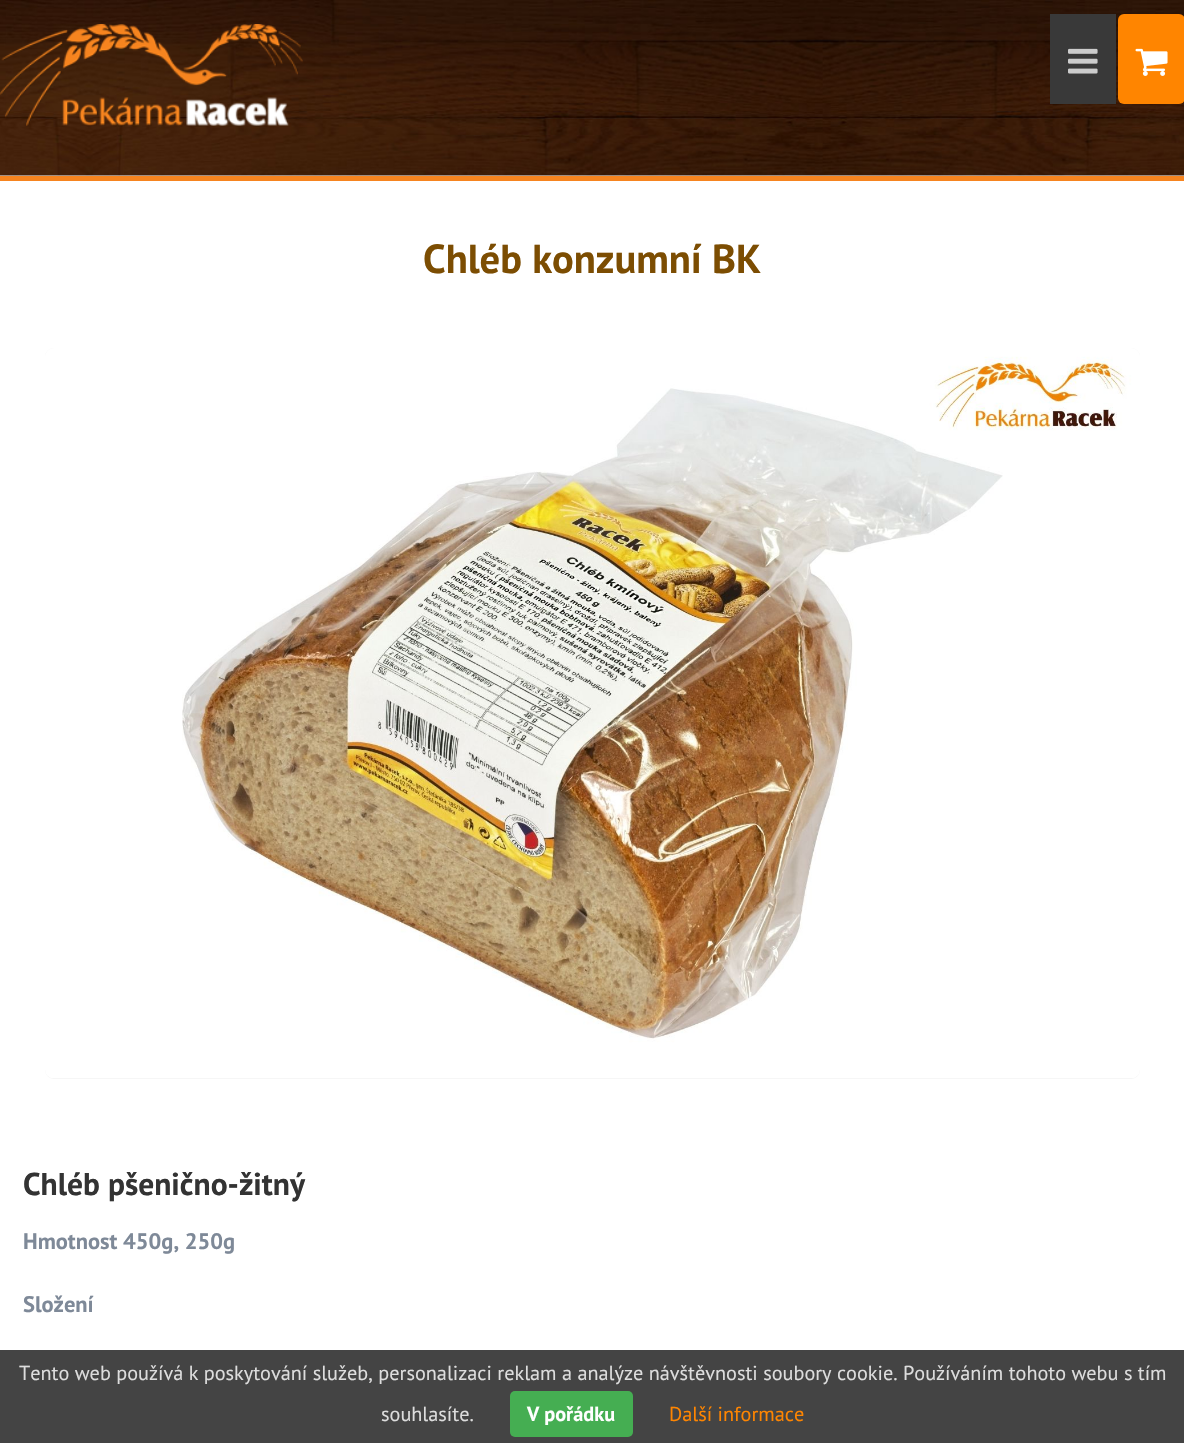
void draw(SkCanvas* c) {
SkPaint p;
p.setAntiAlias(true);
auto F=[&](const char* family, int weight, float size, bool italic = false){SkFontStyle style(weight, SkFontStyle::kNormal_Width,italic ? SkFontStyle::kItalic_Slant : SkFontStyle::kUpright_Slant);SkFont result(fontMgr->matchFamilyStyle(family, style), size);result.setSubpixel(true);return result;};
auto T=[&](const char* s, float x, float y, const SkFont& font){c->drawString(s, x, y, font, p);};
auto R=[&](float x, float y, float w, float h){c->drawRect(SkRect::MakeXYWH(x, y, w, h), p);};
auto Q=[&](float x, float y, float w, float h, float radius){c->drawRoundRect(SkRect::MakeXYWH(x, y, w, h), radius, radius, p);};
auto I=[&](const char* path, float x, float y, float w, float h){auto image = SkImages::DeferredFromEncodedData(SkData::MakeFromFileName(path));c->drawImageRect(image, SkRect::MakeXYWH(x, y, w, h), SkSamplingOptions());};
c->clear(0xffffffff);
I("1.png",0,0,1184,176);
p.setColor(0xfff6841f);
R(0,176,1184,5);
I("2.png",0,24,303,102);
p.setColor(0xff393939);
R(1050,14,66,90);
I("3.png",1068,48,30,26);
p.setColor(0xffff8500);
Q(1118,14,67,90,6);
I("4.png",1135,48,33,28);
auto f1 = F("PT Sans",700,40.5);
p.setColor(0xff7c4d02);
T("Chléb konzumní BK",423,273,f1);
p.setColor(0xfff6f6f6);
Q(45,348,1095,731,9);
I("5.png",45,348,1095,730);
auto f2 = F("PT Sans",700,31.5);
p.setColor(0xff333333);
T("Chléb pšenično-žitný",23,1195,f2);
auto f3 = F("PT Sans",700,22.5);
p.setColor(0xff7e8998);
T("Hmotnost 450g, 250g",23,1249,f3);
T("Složení",23,1312,f3);
p.setColor(0xff444444);
R(0,1350,1184,93);
auto f4 = F("PT Sans",400,20.25);
p.setColor(0xffdddddd);
T("Tento web používá k poskytování služeb, personalizaci reklam a analýze návštěvnosti soubory cookie. Používáním tohoto webu s tím",19,1380,f4);
T("souhlasíte.",381,1421,f4);
p.setColor(0xff45ae52);
Q(510,1391,123,46,5);
auto f5 = F("PT Sans",700,20.25);
p.setColor(0xffffffff);
T("V pořádku",527,1421,f5);
p.setColor(0xffff8500);
T("Další informace",669,1421,f4);
}
